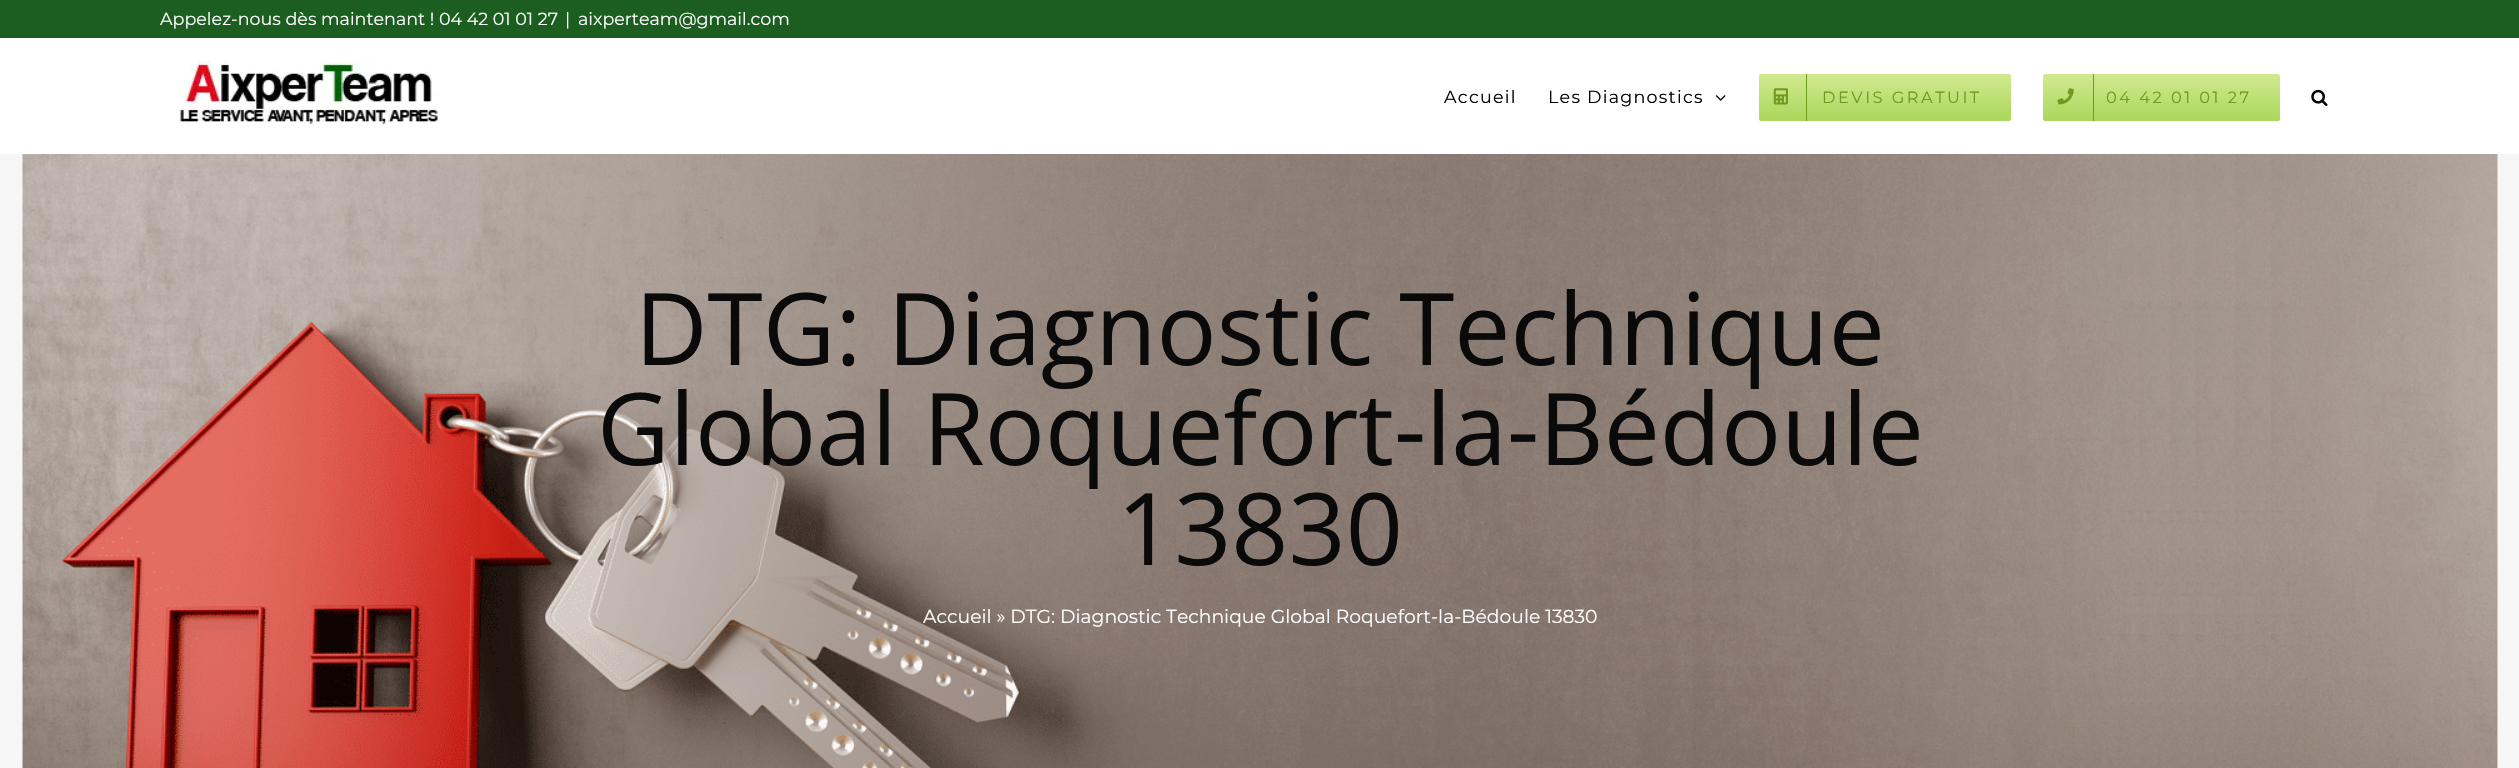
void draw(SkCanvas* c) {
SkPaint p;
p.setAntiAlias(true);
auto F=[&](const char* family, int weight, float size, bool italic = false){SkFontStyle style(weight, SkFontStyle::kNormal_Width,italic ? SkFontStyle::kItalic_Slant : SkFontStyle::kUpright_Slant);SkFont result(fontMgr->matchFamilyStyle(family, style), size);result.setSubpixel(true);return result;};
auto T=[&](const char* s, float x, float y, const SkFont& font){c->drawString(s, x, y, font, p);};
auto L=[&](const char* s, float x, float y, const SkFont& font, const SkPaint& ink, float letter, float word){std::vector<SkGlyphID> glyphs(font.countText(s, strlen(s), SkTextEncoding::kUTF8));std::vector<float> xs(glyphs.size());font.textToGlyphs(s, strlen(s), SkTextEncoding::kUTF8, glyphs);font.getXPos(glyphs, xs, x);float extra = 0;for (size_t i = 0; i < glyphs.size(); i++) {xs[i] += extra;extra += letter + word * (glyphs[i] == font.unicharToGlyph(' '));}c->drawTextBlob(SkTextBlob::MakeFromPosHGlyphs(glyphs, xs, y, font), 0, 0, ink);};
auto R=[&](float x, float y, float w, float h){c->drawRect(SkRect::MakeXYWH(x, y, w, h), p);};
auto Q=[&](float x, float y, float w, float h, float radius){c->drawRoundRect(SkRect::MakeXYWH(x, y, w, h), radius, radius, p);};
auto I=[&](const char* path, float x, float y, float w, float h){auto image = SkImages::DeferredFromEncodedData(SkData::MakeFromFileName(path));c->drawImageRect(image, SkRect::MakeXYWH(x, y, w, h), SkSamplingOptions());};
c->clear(0xfff6f6f6);
p.setColor(0xff1b5e20);
R(0,0,2519,38);
p.setColor(0xffffffff);
R(0,38,2519,116);
auto f1 = F("Montserrat",400,17.5);
T("Appelez-nous dès maintenant ! 04 42 01 01 27",160,25,f1);
T("|",565,25,f1);
T("aixperteam@gmail.com",578,25,f1);
I("1.png",178,59,262,67);
p.setColor(0xff000000);
L("Accueil",1444,103,f1,p,1.25,0);
L("Les Diagnostics",1548,103,f1,p,1.25,0);
I("2.png",1715,95,11,6);
{
const SkColor colors[] = {0xffd1e990,0xffaad75b};
const float stops[] = {0,1};
const SkPoint ends[] = {{1885,74}, {1885,121}};
p.setShader(SkGradientShader::MakeLinear(ends, colors, stops, 2, SkTileMode::kClamp));
p.setAlpha(255);
}
Q(1759,74,252,47,2.5);
p.setShader(nullptr);
p.setColor(0xff6e9a1f);
R(1806,74,1,47);
I("3.png",1773,88,15,17);
auto f2 = F("Montserrat",400,16.25);
L("DEVIS GRATUIT",1822,103,f2,p,2.5,0);
{
const SkColor colors[] = {0xffd1e990,0xffaad75b};
const float stops[] = {0,1};
const SkPoint ends[] = {{2161,74}, {2161,121}};
p.setShader(SkGradientShader::MakeLinear(ends, colors, stops, 2, SkTileMode::kClamp));
p.setAlpha(255);
}
Q(2043,74,237,47,2.5);
p.setShader(nullptr);
p.setColor(0xff6e9a1f);
R(2093,74,1,47);
I("4.png",2057,88,17,17);
L("04 42 01 01 27",2106,103,f2,p,2.5,0);
I("5.png",2311,89,17,18);
I("6.png",22,154,2476,614);
auto f3 = F("Open Sans",400,100);
p.setColor(0xff0a0a0a);
T("DTG: Diagnostic Technique",635,365,f3);
T("Global Roquefort-la-Bédoule",597,465,f3);
T("13830",1117,565,f3);
auto f4 = F("Montserrat",400,18.75);
p.setColor(0xffffffff);
T("Accueil » DTG: Diagnostic Technique Global Roquefort-la-Bédoule 13830",923,623,f4);
}
